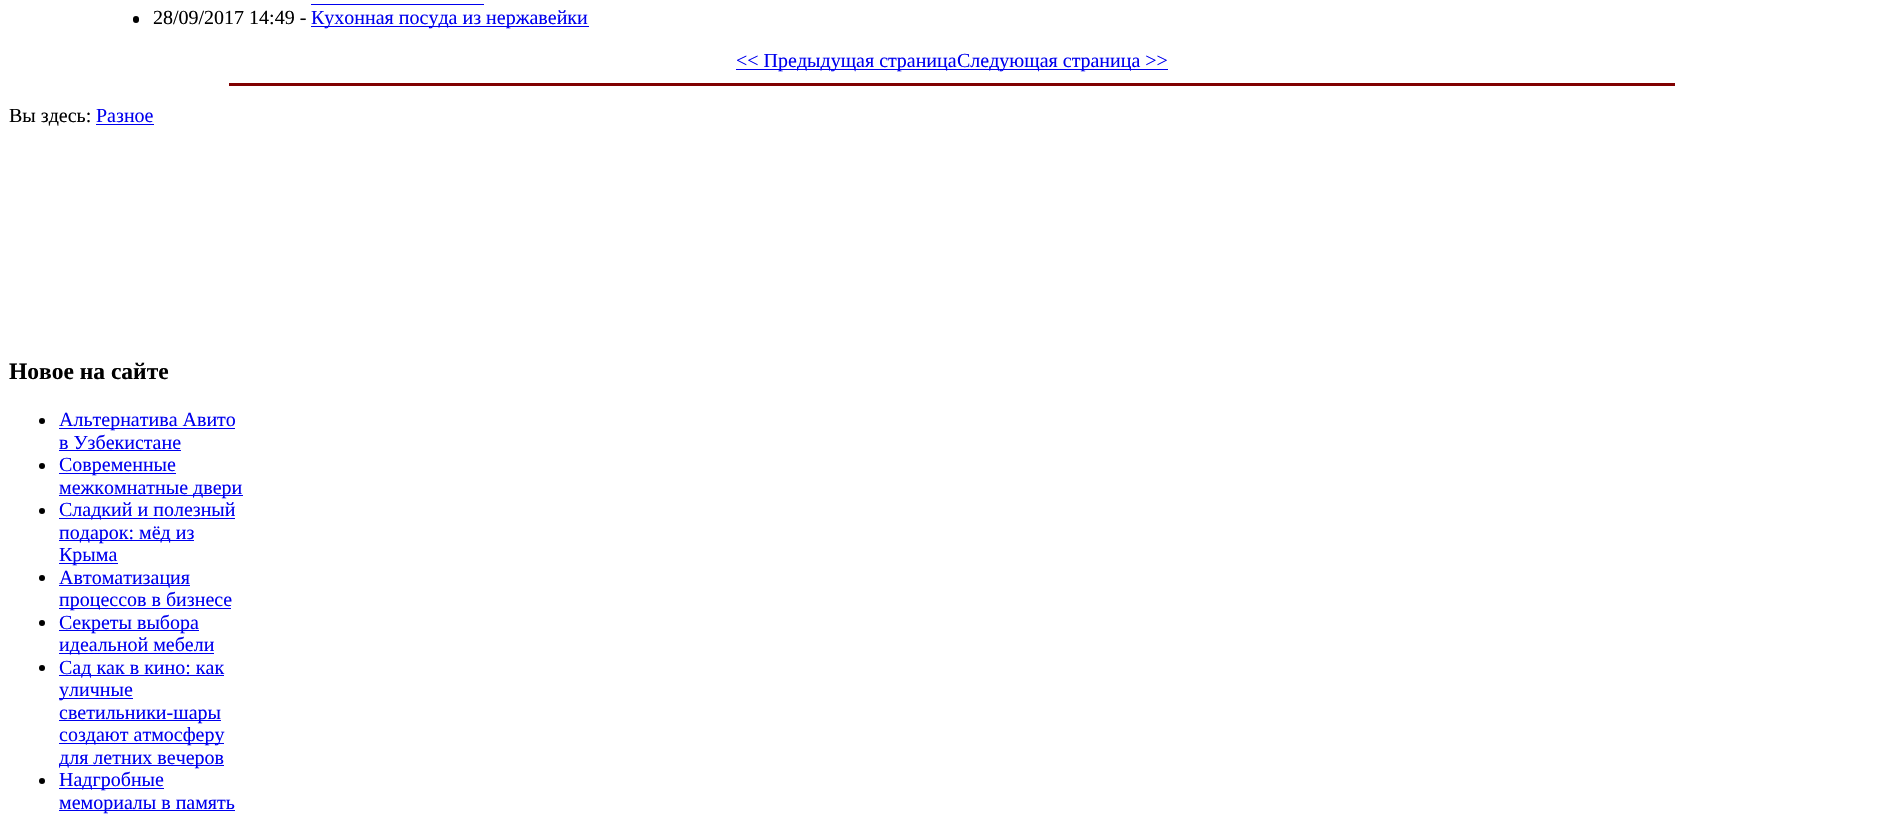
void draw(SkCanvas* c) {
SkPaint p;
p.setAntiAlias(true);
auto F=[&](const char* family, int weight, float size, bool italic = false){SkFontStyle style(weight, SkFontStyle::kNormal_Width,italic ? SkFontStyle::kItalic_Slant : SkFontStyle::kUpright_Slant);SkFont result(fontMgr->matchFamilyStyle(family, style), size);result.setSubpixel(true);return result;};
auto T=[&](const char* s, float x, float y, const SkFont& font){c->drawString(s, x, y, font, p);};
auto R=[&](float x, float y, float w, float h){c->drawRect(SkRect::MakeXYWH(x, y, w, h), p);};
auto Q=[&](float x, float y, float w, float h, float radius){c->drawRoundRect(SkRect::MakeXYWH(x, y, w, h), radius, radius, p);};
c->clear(0xffffffff);
p.setColor(0xff0000ee);
R(311,4,173,1);
p.setColor(0xff000000);
Q(133,16,6,7,3);
auto f1 = F("Liberation Serif",400,20);
T("28/09/2017 14:49 -",153,24,f1);
p.setColor(0xff0000ee);
R(311,26,278,1);
T("Кухонная посуда из нержавейки",311,24,f1);
R(736,69,220,1);
T("<< Предыдущая страница",736,67,f1);
R(956,69,212,1);
T("Следующая страница >>",957,67,f1);
p.setColor(0xff800000);
R(229,83,1446,3);
p.setColor(0xff000000);
T("Вы здесь:",9,122,f1);
p.setColor(0xff0000ee);
T("Разное",96,122,f1);
R(96,124,58,1);
auto f2 = F("Liberation Serif",700,23.5);
p.setColor(0xff000000);
T("Новое на сайте",9,379,f2);
c->drawCircle(42,421,3,p);
p.setColor(0xff0000ee);
R(59,428,176,1);
T("Альтернатива Авито",59,426,f1);
T("в Узбекистане",59,449,f1);
R(59,450,122,1);
p.setColor(0xff000000);
c->drawCircle(42,466,3,p);
p.setColor(0xff0000ee);
R(59,473,117,1);
T("Современные",59,471,f1);
R(59,495,184,1);
T("межкомнатные двери",59,494,f1);
p.setColor(0xff000000);
c->drawCircle(42,511,3,p);
p.setColor(0xff0000ee);
R(59,518,176,1);
T("Сладкий и полезный",59,516,f1);
R(59,540,135,1);
T("подарок: мёд из",59,539,f1);
R(59,563,59,1);
T("Крыма",59,561,f1);
p.setColor(0xff000000);
c->drawCircle(42,578,3,p);
p.setColor(0xff0000ee);
R(59,585,131,1);
T("Автоматизация",59,584,f1);
R(59,608,172,1);
T("процессов в бизнесе",59,606,f1);
p.setColor(0xff000000);
c->drawCircle(42,623,3,p);
p.setColor(0xff0000ee);
R(59,630,140,1);
T("Секреты выбора",59,629,f1);
R(59,653,155,1);
T("идеальной мебели",59,651,f1);
p.setColor(0xff000000);
c->drawCircle(42,668,3,p);
p.setColor(0xff0000ee);
R(59,675,165,1);
T("Сад как в кино: как",59,674,f1);
R(59,698,74,1);
T("уличные",59,696,f1);
R(59,720,162,1);
T("светильники-шары",59,719,f1);
R(59,743,165,1);
T("создают атмосферу",59,741,f1);
R(59,765,165,1);
T("для летних вечеров",59,764,f1);
p.setColor(0xff000000);
c->drawCircle(42,781,3,p);
p.setColor(0xff0000ee);
R(59,788,105,1);
T("Надгробные",59,786,f1);
R(59,810,176,1);
T("мемориалы в память",59,809,f1);
}
